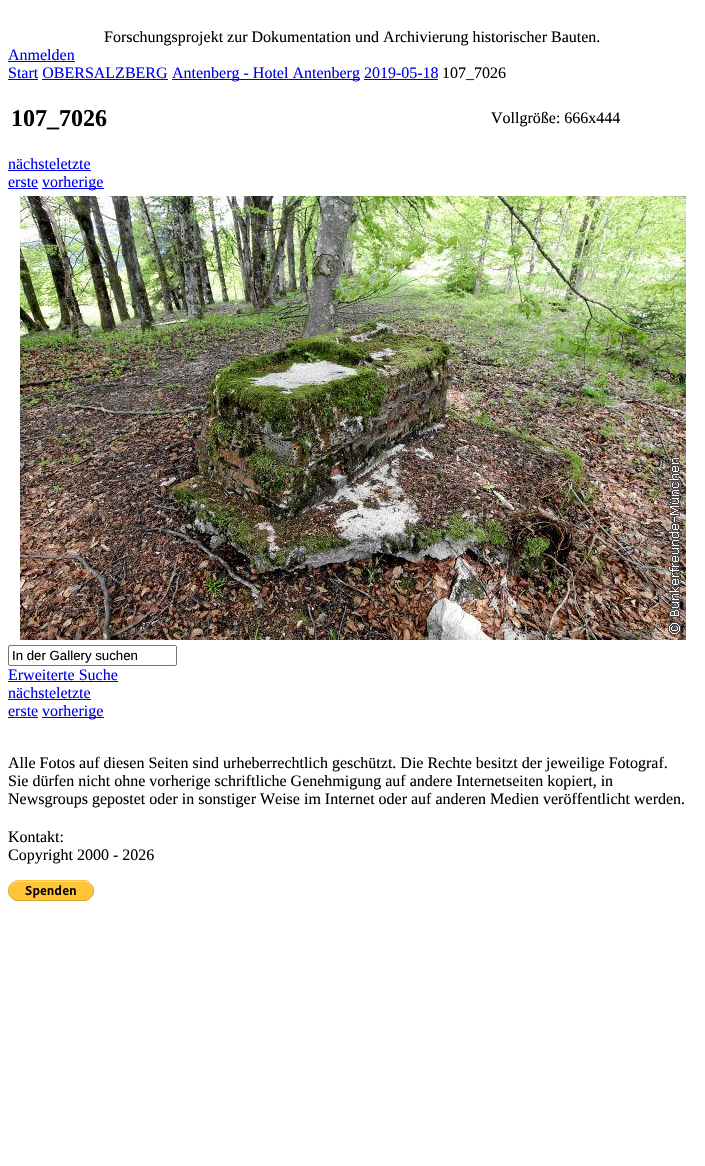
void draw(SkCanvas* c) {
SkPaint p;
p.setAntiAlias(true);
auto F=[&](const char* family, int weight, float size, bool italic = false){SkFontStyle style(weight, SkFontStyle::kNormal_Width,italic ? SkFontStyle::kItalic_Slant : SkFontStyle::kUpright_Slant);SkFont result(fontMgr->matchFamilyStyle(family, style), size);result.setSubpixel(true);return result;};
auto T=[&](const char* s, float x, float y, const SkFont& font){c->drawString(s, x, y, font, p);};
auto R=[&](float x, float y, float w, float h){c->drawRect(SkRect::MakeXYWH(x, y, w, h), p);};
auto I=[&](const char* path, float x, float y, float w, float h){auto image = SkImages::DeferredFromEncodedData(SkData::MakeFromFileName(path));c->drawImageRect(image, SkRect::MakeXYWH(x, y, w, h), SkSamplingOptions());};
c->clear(0xffffffff);
auto f1 = F("Liberation Serif",400,16);
p.setColor(0xff000000);
T("Forschungsprojekt zur Dokumentation und Archivierung historischer Bauten.",104,42,f1);
p.setColor(0xff0000ee);
T("Anmelden",8,60,f1);
R(8,61,67,1);
T("Start OBERSALZBERG",8,78,f1);
R(8,79,30,1);
R(172,79,188,1);
T("Antenberg - Hotel Antenberg 2019-05-18",172,78,f1);
p.setColor(0xff000000);
T("107_7026",442,78,f1);
p.setColor(0xff0000ee);
R(42,79,126,1);
R(364,79,74,1);
auto f2 = F("Liberation Serif",700,24);
p.setColor(0xff000000);
T("107_7026",11,126,f2);
T("Vollgröße: 666x444",491,123,f1);
p.setColor(0xff0000ee);
T("nächsteletzte",8,169,f1);
R(8,170,83,1);
T("erste",8,187,f1);
R(8,188,30,1);
R(42,188,62,1);
T("vorherige",42,187,f1);
I("1.png",20,196,666,444);
p.setStroke(true);
p.setStrokeWidth(1);
p.setColor(0xff767676);
c->drawRoundRect(SkRect::MakeXYWH(8.5,645.5,168,20),1.5,1.5,p);
auto f3 = F("Liberation Sans",400,13.25);
p.setStroke(false);
p.setColor(0xff000000);
T("In der Gallery suchen",12,660,f3);
p.setColor(0xff0000ee);
T("Erweiterte Suche",8,680,f1);
R(8,681,110,1);
T("nächsteletzte",8,698,f1);
R(8,699,83,1);
T("erste",8,716,f1);
R(8,717,30,1);
R(42,717,62,1);
T("vorherige",42,716,f1);
p.setColor(0xff000000);
T("Alle Fotos auf diesen Seiten sind urheberrechtlich geschützt. Die Rechte besitzt der jeweilige Fotograf.",8,768,f1);
T("Sie dürfen nicht ohne vorherige schriftliche Genehmigung auf andere Internetseiten kopiert, in",8,786,f1);
T("Newsgroups gepostet oder in sonstiger Weise im Internet oder auf anderen Medien veröffentlicht werden.",8,804,f1);
T("Kontakt:",8,842,f1);
T("Copyright 2000 - 2026",8,860,f1);
I("2.png",8,880,86,21);
}
